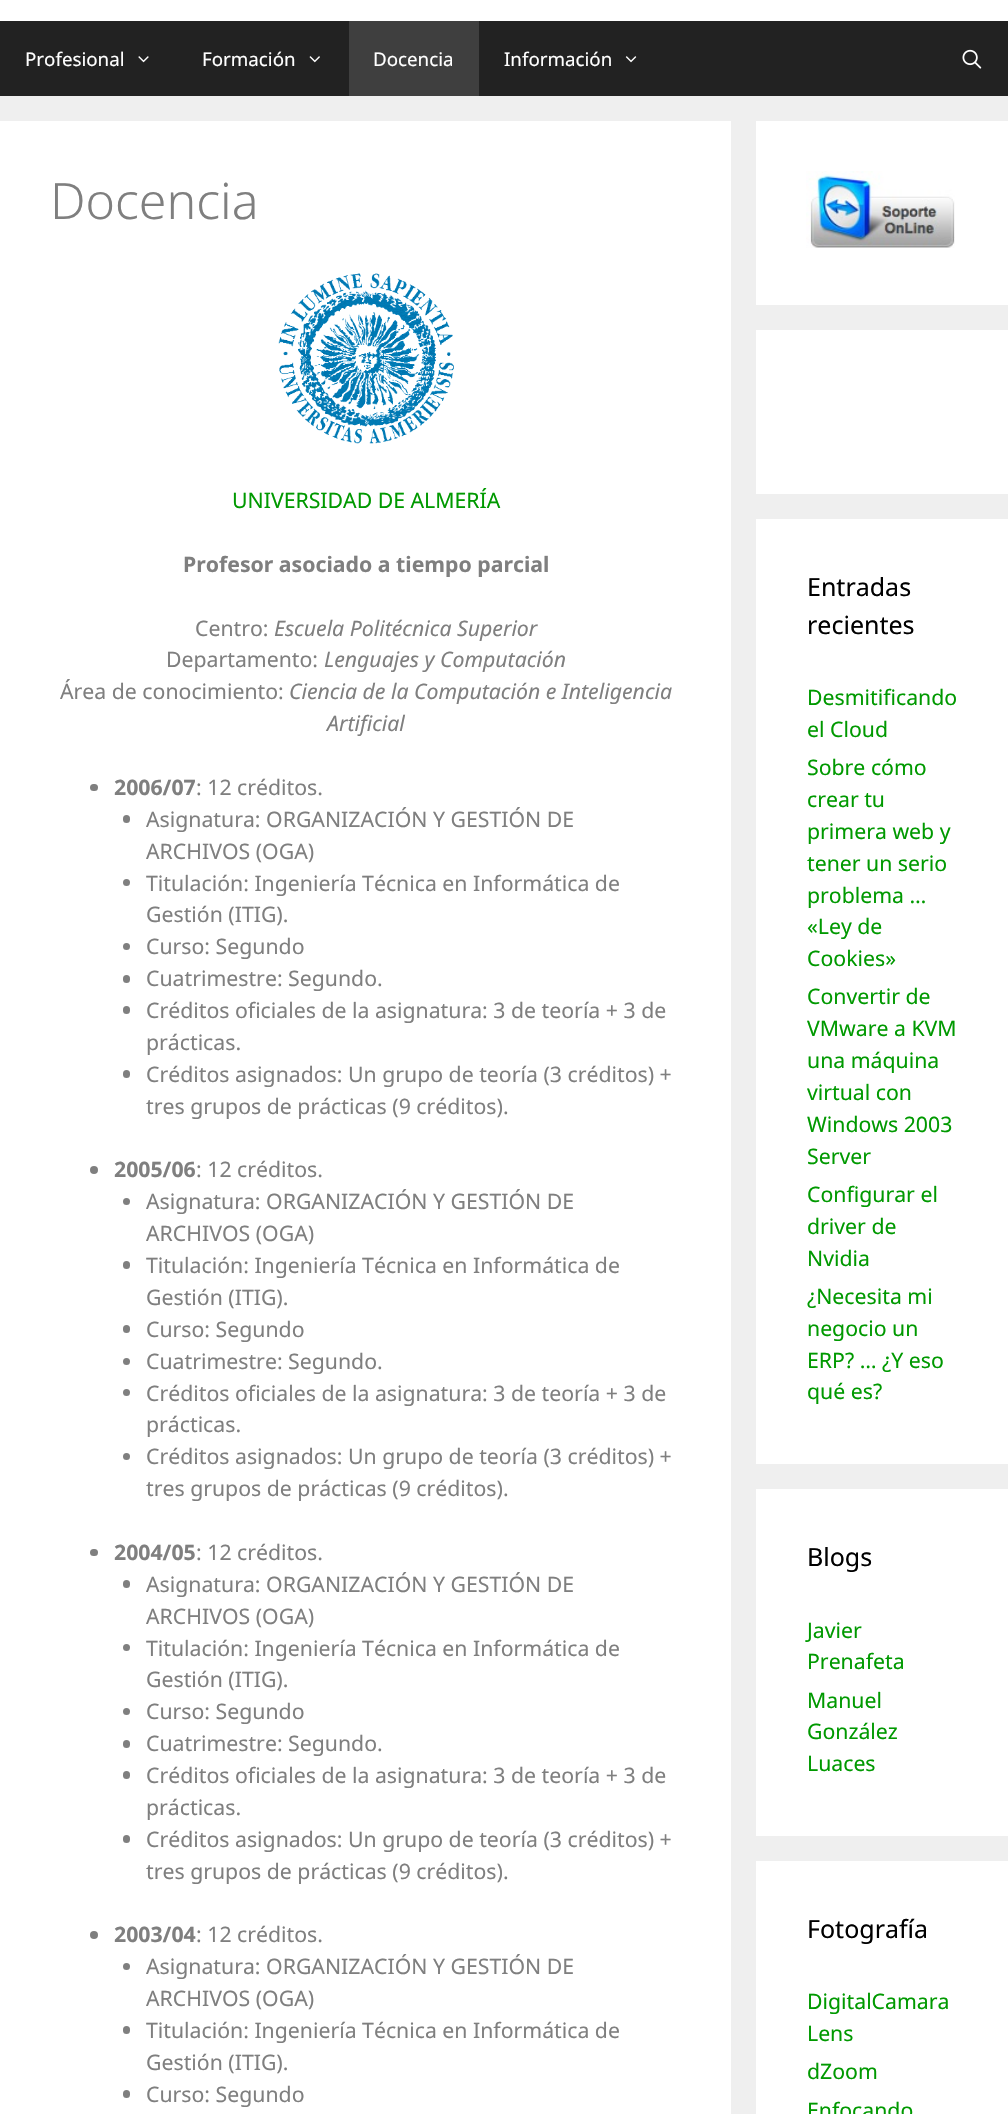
void draw(SkCanvas* c) {
SkPaint p;
p.setAntiAlias(true);
auto F=[&](const char* family, int weight, float size, bool italic = false){SkFontStyle style(weight, SkFontStyle::kNormal_Width,italic ? SkFontStyle::kItalic_Slant : SkFontStyle::kUpright_Slant);SkFont result(fontMgr->matchFamilyStyle(family, style), size);result.setSubpixel(true);return result;};
auto T=[&](const char* s, float x, float y, const SkFont& font){c->drawString(s, x, y, font, p);};
auto R=[&](float x, float y, float w, float h){c->drawRect(SkRect::MakeXYWH(x, y, w, h), p);};
auto Q=[&](float x, float y, float w, float h, float radius){c->drawRoundRect(SkRect::MakeXYWH(x, y, w, h), radius, radius, p);};
auto I=[&](const char* path, float x, float y, float w, float h){auto image = SkImages::DeferredFromEncodedData(SkData::MakeFromFileName(path));c->drawImageRect(image, SkRect::MakeXYWH(x, y, w, h), SkSamplingOptions());};
c->clear(0xffefefef);
p.setColor(0xffffffff);
R(0,0,1008,21);
p.setColor(0xff222222);
R(0,21,1008,75);
auto f1 = F("Noto Sans",400,18.75);
p.setColor(0xffffffff);
T("Profesional",25,66,f1);
I("1.png",138,56,11,7);
T("Formación",202,66,f1);
I("2.png",309,56,11,7);
p.setColor(0xff3f3f3f);
R(349,21,130,75);
p.setColor(0xffffffff);
T("Docencia",373,66,f1);
T("Información",504,66,f1);
I("3.png",625,56,12,7);
I("4.png",962,49,20,20);
R(0,121,731,1993);
auto f2 = F("Noto Sans",300,50);
p.setColor(0xff7f7f7f);
T("Docencia",50,219,f2);
I("5.png",278,273,176,171);
auto f3 = F("Noto Sans",400,21.25);
p.setColor(0xff009900);
T("UNIVERSIDAD DE ALMERÍA",232,508,f3);
auto f4 = F("Noto Sans",700,21.25);
p.setColor(0xff7f7f7f);
T("Profesor asociado a tiempo parcial",183,572,f4);
T("Centro:",195,636,f3);
auto f5 = F("Noto Sans",400,21.25,true);
T("Escuela Politécnica Superior",274,636,f5);
T("Departamento:",166,667,f3);
T("Lenguajes y Computación",324,667,f5);
T("Área de conocimiento:",60,699,f3);
T("Ciencia de la Computación e Inteligencia",289,699,f5);
T("Artificial",327,731,f5);
Q(90,784,8,7,3.5);
T("2006/07",114,795,f4);
T(": 12 créditos.",196,795,f3);
Q(123,815,7,8,3.5);
T("Asignatura: ORGANIZACIÓN Y GESTIÓN DE",146,827,f3);
T("ARCHIVOS (OGA)",146,859,f3);
c->drawCircle(126.5,882.5,3.5,p);
T("Titulación: Ingeniería Técnica en Informática de",146,891,f3);
T("Gestión (ITIG).",146,922,f3);
c->drawCircle(126.5,946.5,3.5,p);
T("Curso: Segundo",146,954,f3);
Q(123,975,7,8,3.5);
T("Cuatrimestre: Segundo.",146,986,f3);
Q(123,1006,7,8,3.5);
T("Créditos oficiales de la asignatura: 3 de teoría + 3 de",146,1018,f3);
T("prácticas.",146,1050,f3);
Q(123,1070,7,8,3.5);
T("Créditos asignados: Un grupo de teoría (3 créditos) +",146,1082,f3);
T("tres grupos de prácticas (9 créditos).",146,1114,f3);
c->drawCircle(94,1170,4,p);
T("2005/06",114,1177,f4);
T(": 12 créditos.",196,1177,f3);
c->drawCircle(126.5,1201.5,3.5,p);
T("Asignatura: ORGANIZACIÓN Y GESTIÓN DE",146,1209,f3);
T("ARCHIVOS (OGA)",146,1241,f3);
Q(123,1261,7,8,3.5);
T("Titulación: Ingeniería Técnica en Informática de",146,1273,f3);
T("Gestión (ITIG).",146,1305,f3);
Q(123,1325,7,8,3.5);
T("Curso: Segundo",146,1337,f3);
c->drawCircle(126.5,1361.5,3.5,p);
T("Cuatrimestre: Segundo.",146,1369,f3);
c->drawCircle(126.5,1392.5,3.5,p);
T("Créditos oficiales de la asignatura: 3 de teoría + 3 de",146,1401,f3);
T("prácticas.",146,1432,f3);
c->drawCircle(126.5,1456.5,3.5,p);
T("Créditos asignados: Un grupo de teoría (3 créditos) +",146,1464,f3);
T("tres grupos de prácticas (9 créditos).",146,1496,f3);
Q(90,1549,8,7,3.5);
T("2004/05",114,1560,f4);
T(": 12 créditos.",196,1560,f3);
Q(123,1580,7,8,3.5);
T("Asignatura: ORGANIZACIÓN Y GESTIÓN DE",146,1592,f3);
T("ARCHIVOS (OGA)",146,1624,f3);
c->drawCircle(126.5,1647.5,3.5,p);
T("Titulación: Ingeniería Técnica en Informática de",146,1656,f3);
T("Gestión (ITIG).",146,1687,f3);
c->drawCircle(126.5,1711.5,3.5,p);
T("Curso: Segundo",146,1719,f3);
Q(123,1740,7,8,3.5);
T("Cuatrimestre: Segundo.",146,1751,f3);
Q(123,1771,7,8,3.5);
T("Créditos oficiales de la asignatura: 3 de teoría + 3 de",146,1783,f3);
T("prácticas.",146,1815,f3);
Q(123,1835,7,8,3.5);
T("Créditos asignados: Un grupo de teoría (3 créditos) +",146,1847,f3);
T("tres grupos de prácticas (9 créditos).",146,1879,f3);
c->drawCircle(94,1935,4,p);
T("2003/04",114,1942,f4);
T(": 12 créditos.",196,1942,f3);
c->drawCircle(126.5,1966.5,3.5,p);
T("Asignatura: ORGANIZACIÓN Y GESTIÓN DE",146,1974,f3);
T("ARCHIVOS (OGA)",146,2006,f3);
Q(123,2026,7,8,3.5);
T("Titulación: Ingeniería Técnica en Informática de",146,2038,f3);
T("Gestión (ITIG).",146,2070,f3);
Q(123,2090,7,8,3.5);
T("Curso: Segundo",146,2102,f3);
p.setColor(0xffffffff);
R(756,121,252,184);
I("6.png",806,171,149,77);
R(756,330,252,164);
R(756,519,252,945);
auto f6 = F("Noto Sans",400,25);
p.setColor(0xff000000);
T("Entradas",807,596,f6);
T("recientes",807,634,f6);
p.setColor(0xff009900);
T("Desmitificando",807,705,f3);
T("el Cloud",807,737,f3);
T("Sobre cómo",807,775,f3);
T("crear tu",807,807,f3);
T("primera web y",807,839,f3);
T("tener un serio",807,871,f3);
T("problema …",807,903,f3);
T("«Ley de",807,934,f3);
T("Cookies»",807,966,f3);
T("Convertir de",807,1004,f3);
T("VMware a KVM",807,1036,f3);
T("una máquina",807,1068,f3);
T("virtual con",807,1100,f3);
T("Windows 2003",807,1132,f3);
T("Server",807,1164,f3);
T("Configurar el",807,1202,f3);
T("driver de",807,1234,f3);
T("Nvidia",807,1266,f3);
T("¿Necesita mi",807,1304,f3);
T("negocio un",807,1336,f3);
T("ERP? … ¿Y eso",807,1368,f3);
T("qué es?",807,1399,f3);
p.setColor(0xffffffff);
R(756,1489,252,347);
p.setColor(0xff000000);
T("Blogs",807,1566,f6);
p.setColor(0xff009900);
T("Javier",807,1638,f3);
T("Prenafeta",807,1669,f3);
T("Manuel",807,1708,f3);
T("González",807,1739,f3);
T("Luaces",807,1771,f3);
p.setColor(0xffffffff);
R(756,1861,252,253);
p.setColor(0xff000000);
T("Fotografía",807,1938,f6);
p.setColor(0xff009900);
T("DigitalCamara",807,2009,f3);
T("Lens",807,2041,f3);
T("dZoom",807,2079,f3);
T("Enfocando",807,2118,f3);
}
